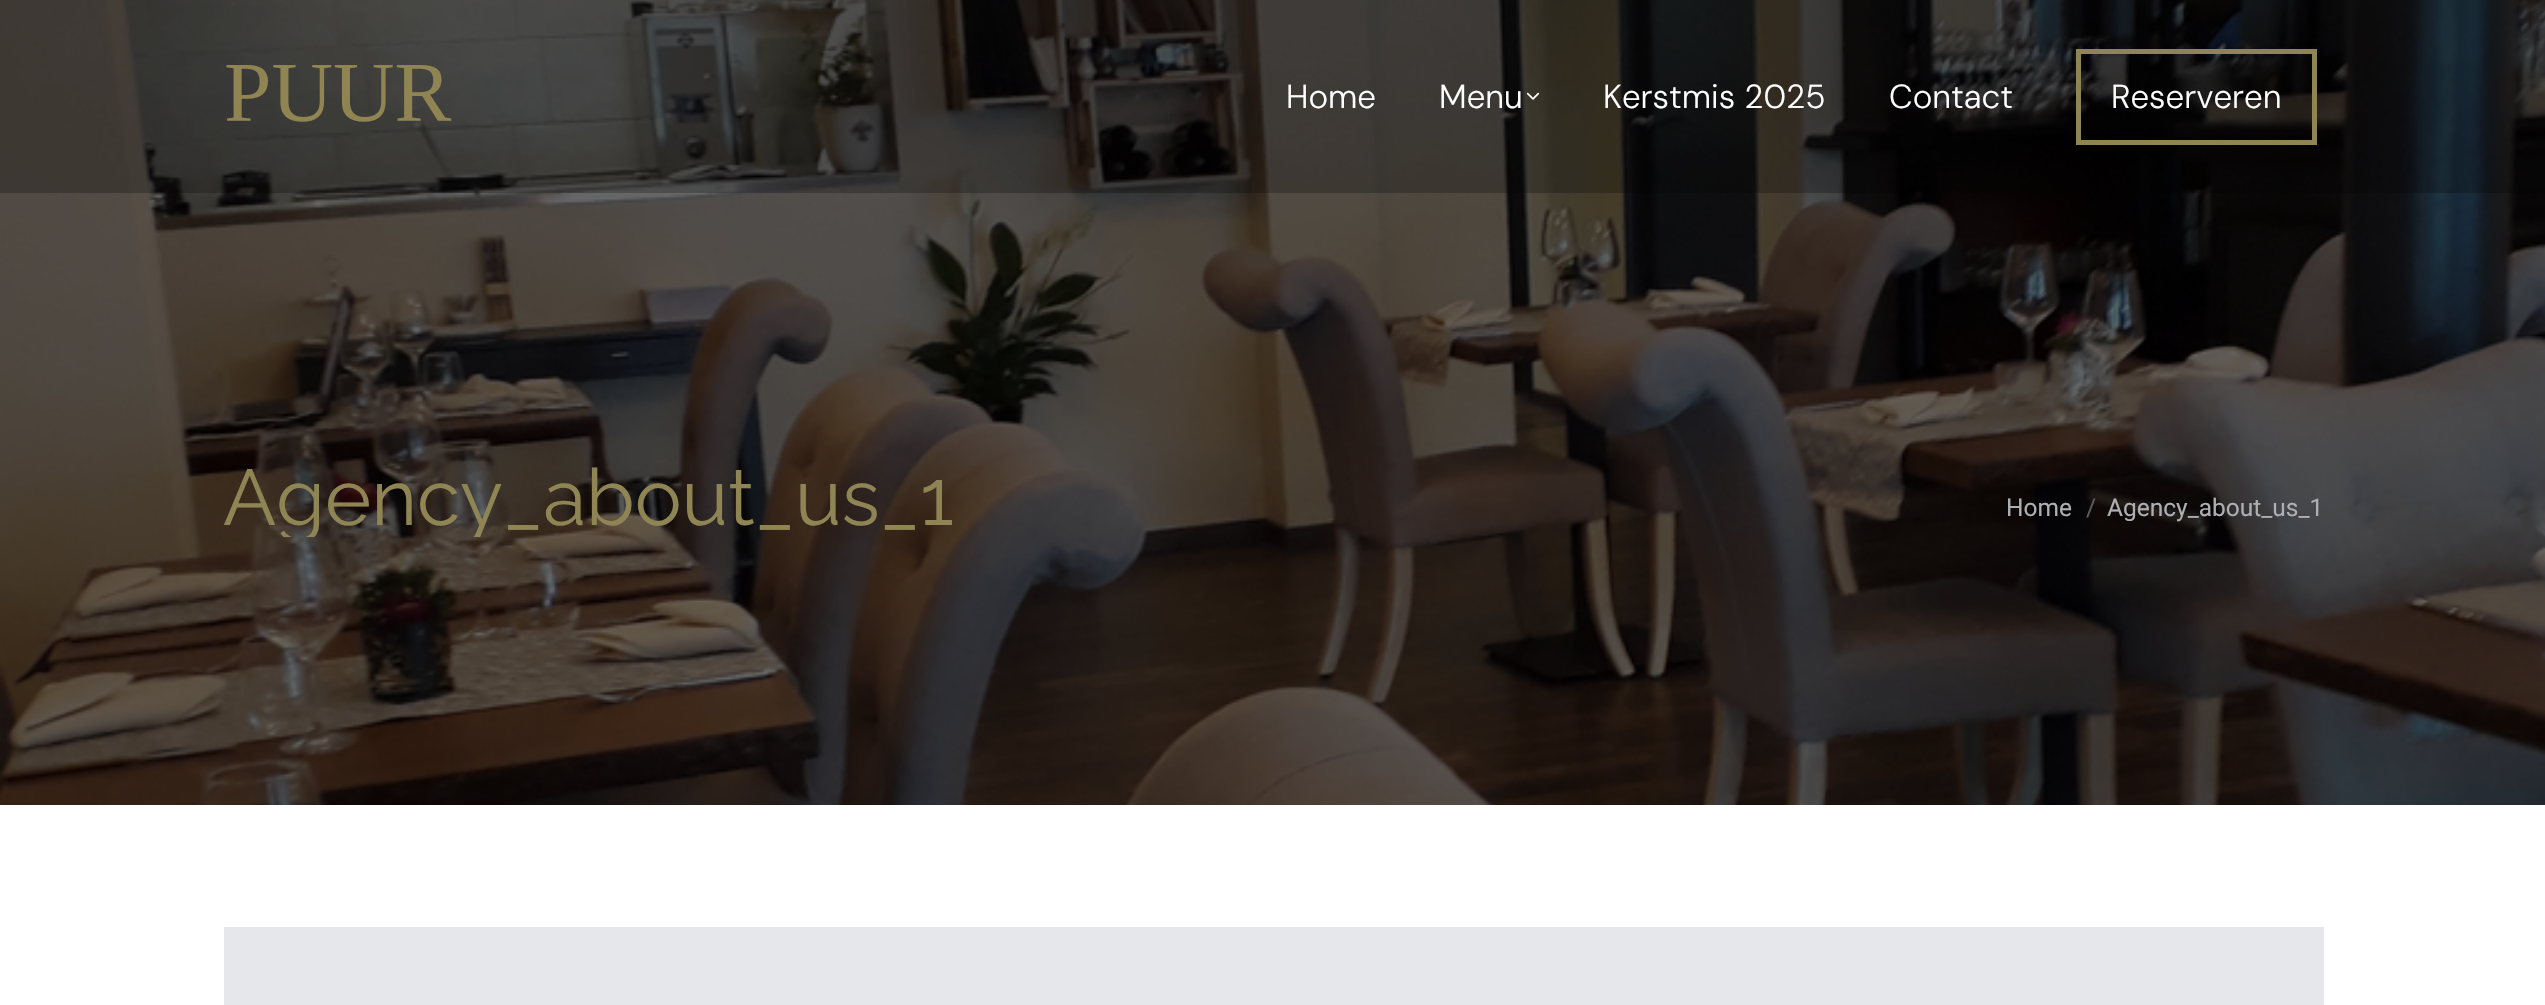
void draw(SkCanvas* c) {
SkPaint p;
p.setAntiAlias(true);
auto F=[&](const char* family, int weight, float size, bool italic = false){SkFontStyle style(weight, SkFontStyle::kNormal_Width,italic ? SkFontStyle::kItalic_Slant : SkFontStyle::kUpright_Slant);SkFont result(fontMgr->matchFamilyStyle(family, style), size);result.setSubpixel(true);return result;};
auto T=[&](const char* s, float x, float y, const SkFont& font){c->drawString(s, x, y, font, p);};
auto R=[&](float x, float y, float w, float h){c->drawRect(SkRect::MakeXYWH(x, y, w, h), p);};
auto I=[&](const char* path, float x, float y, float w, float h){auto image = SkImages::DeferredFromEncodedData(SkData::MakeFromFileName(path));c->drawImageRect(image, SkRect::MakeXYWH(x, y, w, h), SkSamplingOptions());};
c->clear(0xffffffff);
I("3.png",0,0,2545,805);
p.setColor(0x40000000);
R(0,0,2545,193);
I("1.png",226,65,226,57);
auto f1 = F("DM Sans",300,33.25);
p.setColor(0xffffffff);
T("Home",1286,108,f1);
T("Menu",1439,108,f1);
I("2.png",1526,92,14,8);
T("Kerstmis 2025",1603,108,f1);
T("Contact",1889,108,f1);
p.setStroke(true);
p.setStrokeWidth(5);
p.setColor(0xff8f8453);
c->drawRect(SkRect::MakeXYWH(2078.5,51.5,236,91),p);
p.setStroke(false);
p.setColor(0xffffffff);
T("Reserveren",2111,108,f1);
c->save();
c->clipRect(SkRect::MakeXYWH(224,460,730,77));
auto f2 = F("Raleway",400,78.75);
p.setColor(0xff8f8453);
T("Agency_about_us_1",223,525,f2);
c->restore();
auto f3 = F("Roboto",400,24.5);
p.setColor(0xffadafb3);
T("Home",2006,516,f3);
p.setColor(0xff5d5d5e);
T("/",2086,516,f3);
p.setColor(0xffadafb3);
T("Agency_about_us_1",2107,516,f3);
p.setColor(0xffe5e7eb);
R(224,927,2100,78);
}
